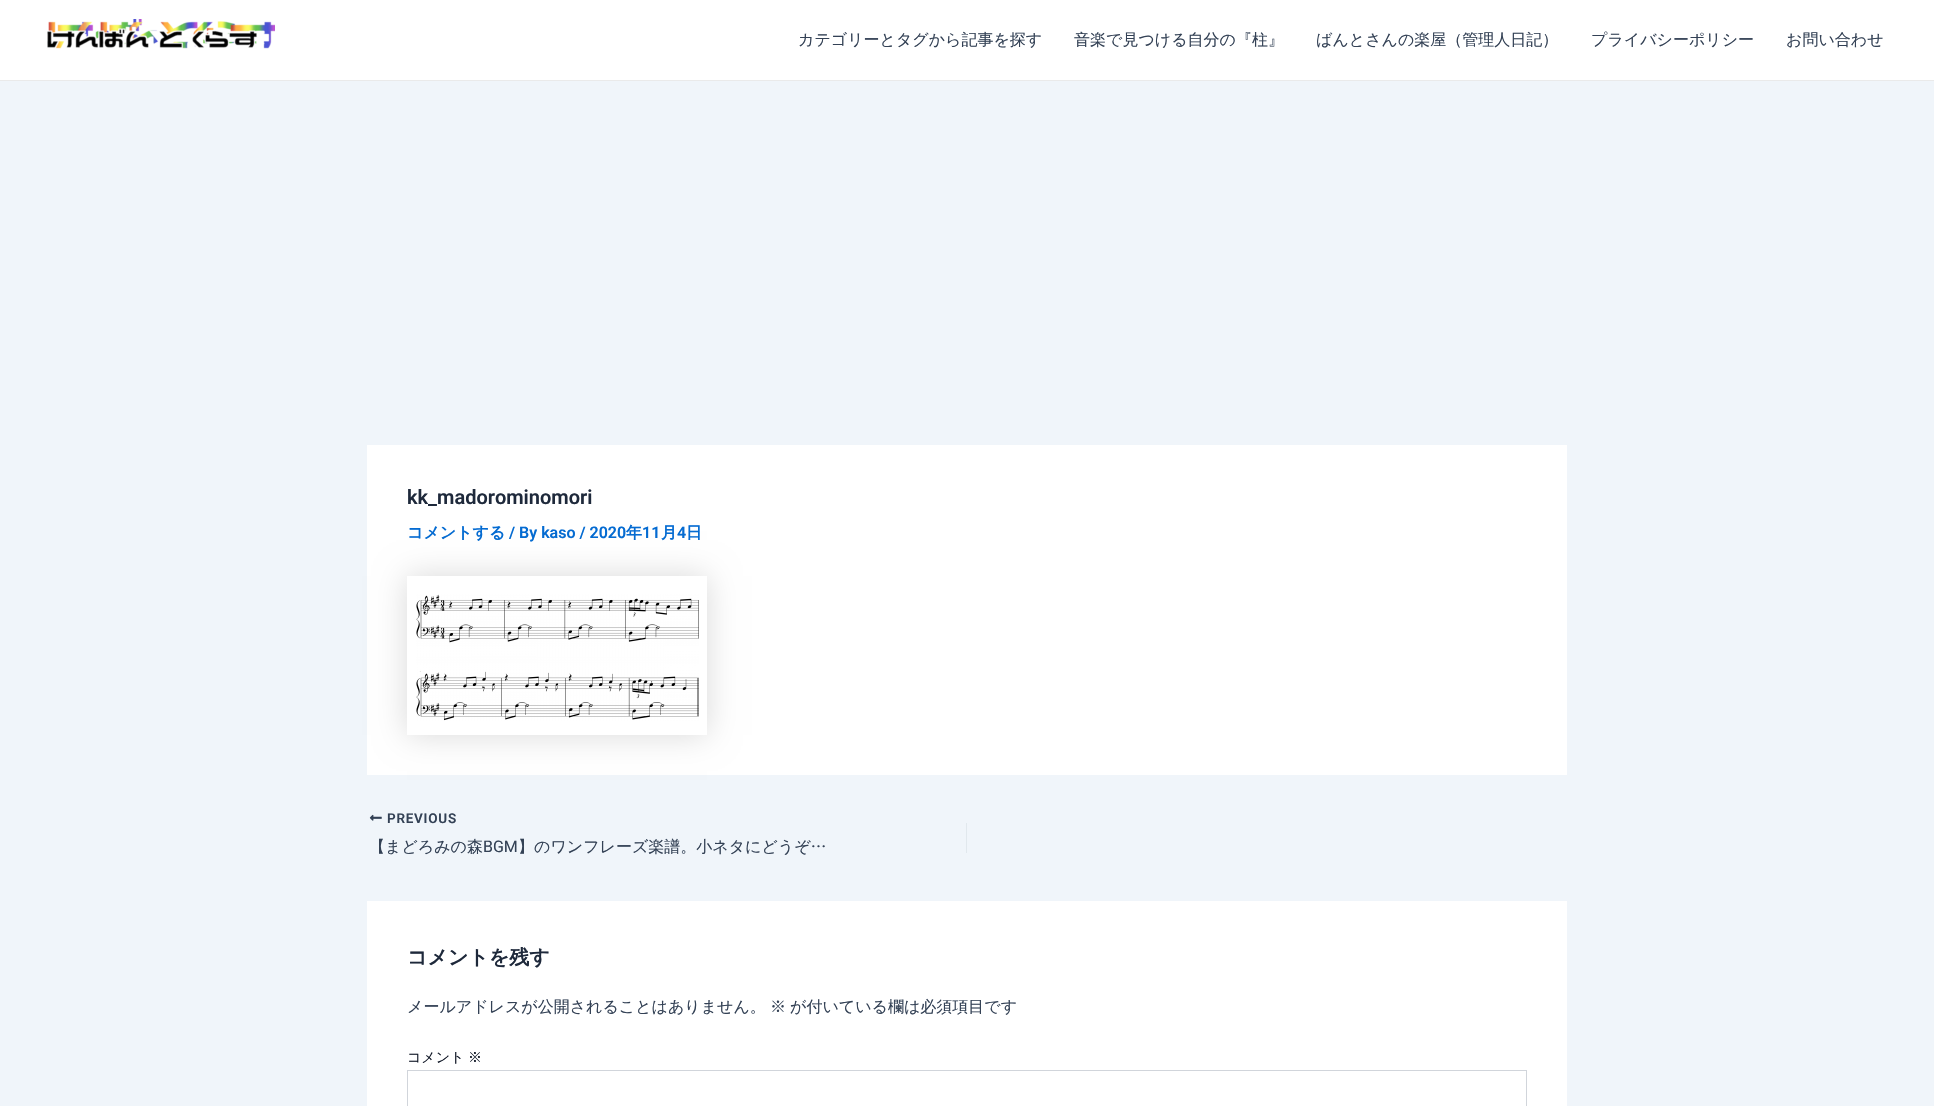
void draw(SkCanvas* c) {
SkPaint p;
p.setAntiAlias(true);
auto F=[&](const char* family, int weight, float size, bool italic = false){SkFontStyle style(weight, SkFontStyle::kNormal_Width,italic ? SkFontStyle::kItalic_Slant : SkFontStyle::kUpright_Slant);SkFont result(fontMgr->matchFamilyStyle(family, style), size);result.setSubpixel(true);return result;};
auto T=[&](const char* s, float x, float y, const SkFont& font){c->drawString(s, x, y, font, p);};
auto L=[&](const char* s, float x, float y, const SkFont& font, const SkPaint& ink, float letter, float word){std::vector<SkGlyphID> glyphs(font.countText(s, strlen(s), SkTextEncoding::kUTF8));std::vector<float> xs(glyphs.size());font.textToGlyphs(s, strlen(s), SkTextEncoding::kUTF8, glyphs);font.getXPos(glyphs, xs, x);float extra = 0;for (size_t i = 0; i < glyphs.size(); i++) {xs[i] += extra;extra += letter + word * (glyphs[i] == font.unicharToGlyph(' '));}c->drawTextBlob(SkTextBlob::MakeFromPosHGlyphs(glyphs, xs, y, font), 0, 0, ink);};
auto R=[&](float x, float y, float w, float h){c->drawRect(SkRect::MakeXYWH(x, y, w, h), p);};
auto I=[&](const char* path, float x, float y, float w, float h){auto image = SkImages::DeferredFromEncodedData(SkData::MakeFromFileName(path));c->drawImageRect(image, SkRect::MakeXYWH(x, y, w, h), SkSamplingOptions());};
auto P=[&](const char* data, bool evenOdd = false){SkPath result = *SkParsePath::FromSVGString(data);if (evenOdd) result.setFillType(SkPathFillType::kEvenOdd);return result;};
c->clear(0xfff0f5fa);
p.setColor(0xffffffff);
R(0,0,1934,80);
p.setColor(0xffeaeaea);
R(0,80,1934,1);
I("1.png",47,19,228,30);
auto f1 = F("WenQuanYi Zen Hei",500,16);
p.setColor(0xff334155);
T("カテゴリーとタグから記事を探す",798,45,f1);
T("音楽で見つける自分の『柱』",1074,45,f1);
T("ばんとさんの楽屋（管理人日記）",1316,45,f1);
T("プライバシーポリシー",1591,45,f1);
T("お問い合わせ",1786,45,f1);
p.setColor(0xffffffff);
R(367,445,1200,330);
auto f2 = F("Roboto",600,20);
p.setColor(0xff1e293b);
T("kk_madorominomori",407,504,f2);
auto f3 = F("WenQuanYi Zen Hei",700,16);
p.setColor(0xff046bd2);
T("コメントする",407,538,f3);
auto f4 = F("Roboto",600,16);
T("/ By kaso / 2020",509,538,f4);
T("年",626,538,f3);
T("11",642,538,f4);
T("月",661,538,f3);
T("4",677,538,f4);
T("日",686,538,f3);
c->save();
c->clipPath(P("M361 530h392v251h-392zm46 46h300v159h-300z",true),true);
p.setColor(0x26000000);
p.setMaskFilter(SkMaskFilter::MakeBlur(kNormal_SkBlurStyle, 15));
c->drawRect(SkRect::MakeXYWH(407,576,300,159),p);
p.setMaskFilter(nullptr);
c->restore();
I("2.png",416,594,283,127);
I("3.png",369,814,13,7);
auto f5 = F("Roboto",600,13.5);
p.setColor(0xff334155);
L("PREVIOUS",387,823,f5,p,.75,0);
T("【まどろみの森",369,852,f1);
auto f6 = F("Roboto",400,16);
T("BGM",483,852,f6);
T("】のワンフレーズ楽譜。小ネタにどうぞ…",518,852,f1);
p.setColor(0xffe1e8ed);
R(966,823,1,30);
p.setColor(0xffffffff);
R(367,901,1200,205);
auto f7 = F("WenQuanYi Zen Hei",700,20);
p.setColor(0xff1e293b);
T("コメントを残す",407,964,f7);
p.setColor(0xff334155);
T("メールアドレスが公開されることはありません。",407,1012,f1);
T("※",770,1012,f1);
T("が付いている欄は必須項目です",790,1012,f1);
auto f8 = F("WenQuanYi Zen Hei",500,14);
p.setColor(0xff111827);
T("コメント",407,1062,f8);
T("※",468,1062,f8);
p.setStroke(true);
p.setStrokeWidth(1);
p.setColor(0xffd1d5db);
c->drawRect(SkRect::MakeXYWH(407.5,1070.5,1119,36),p);
}
